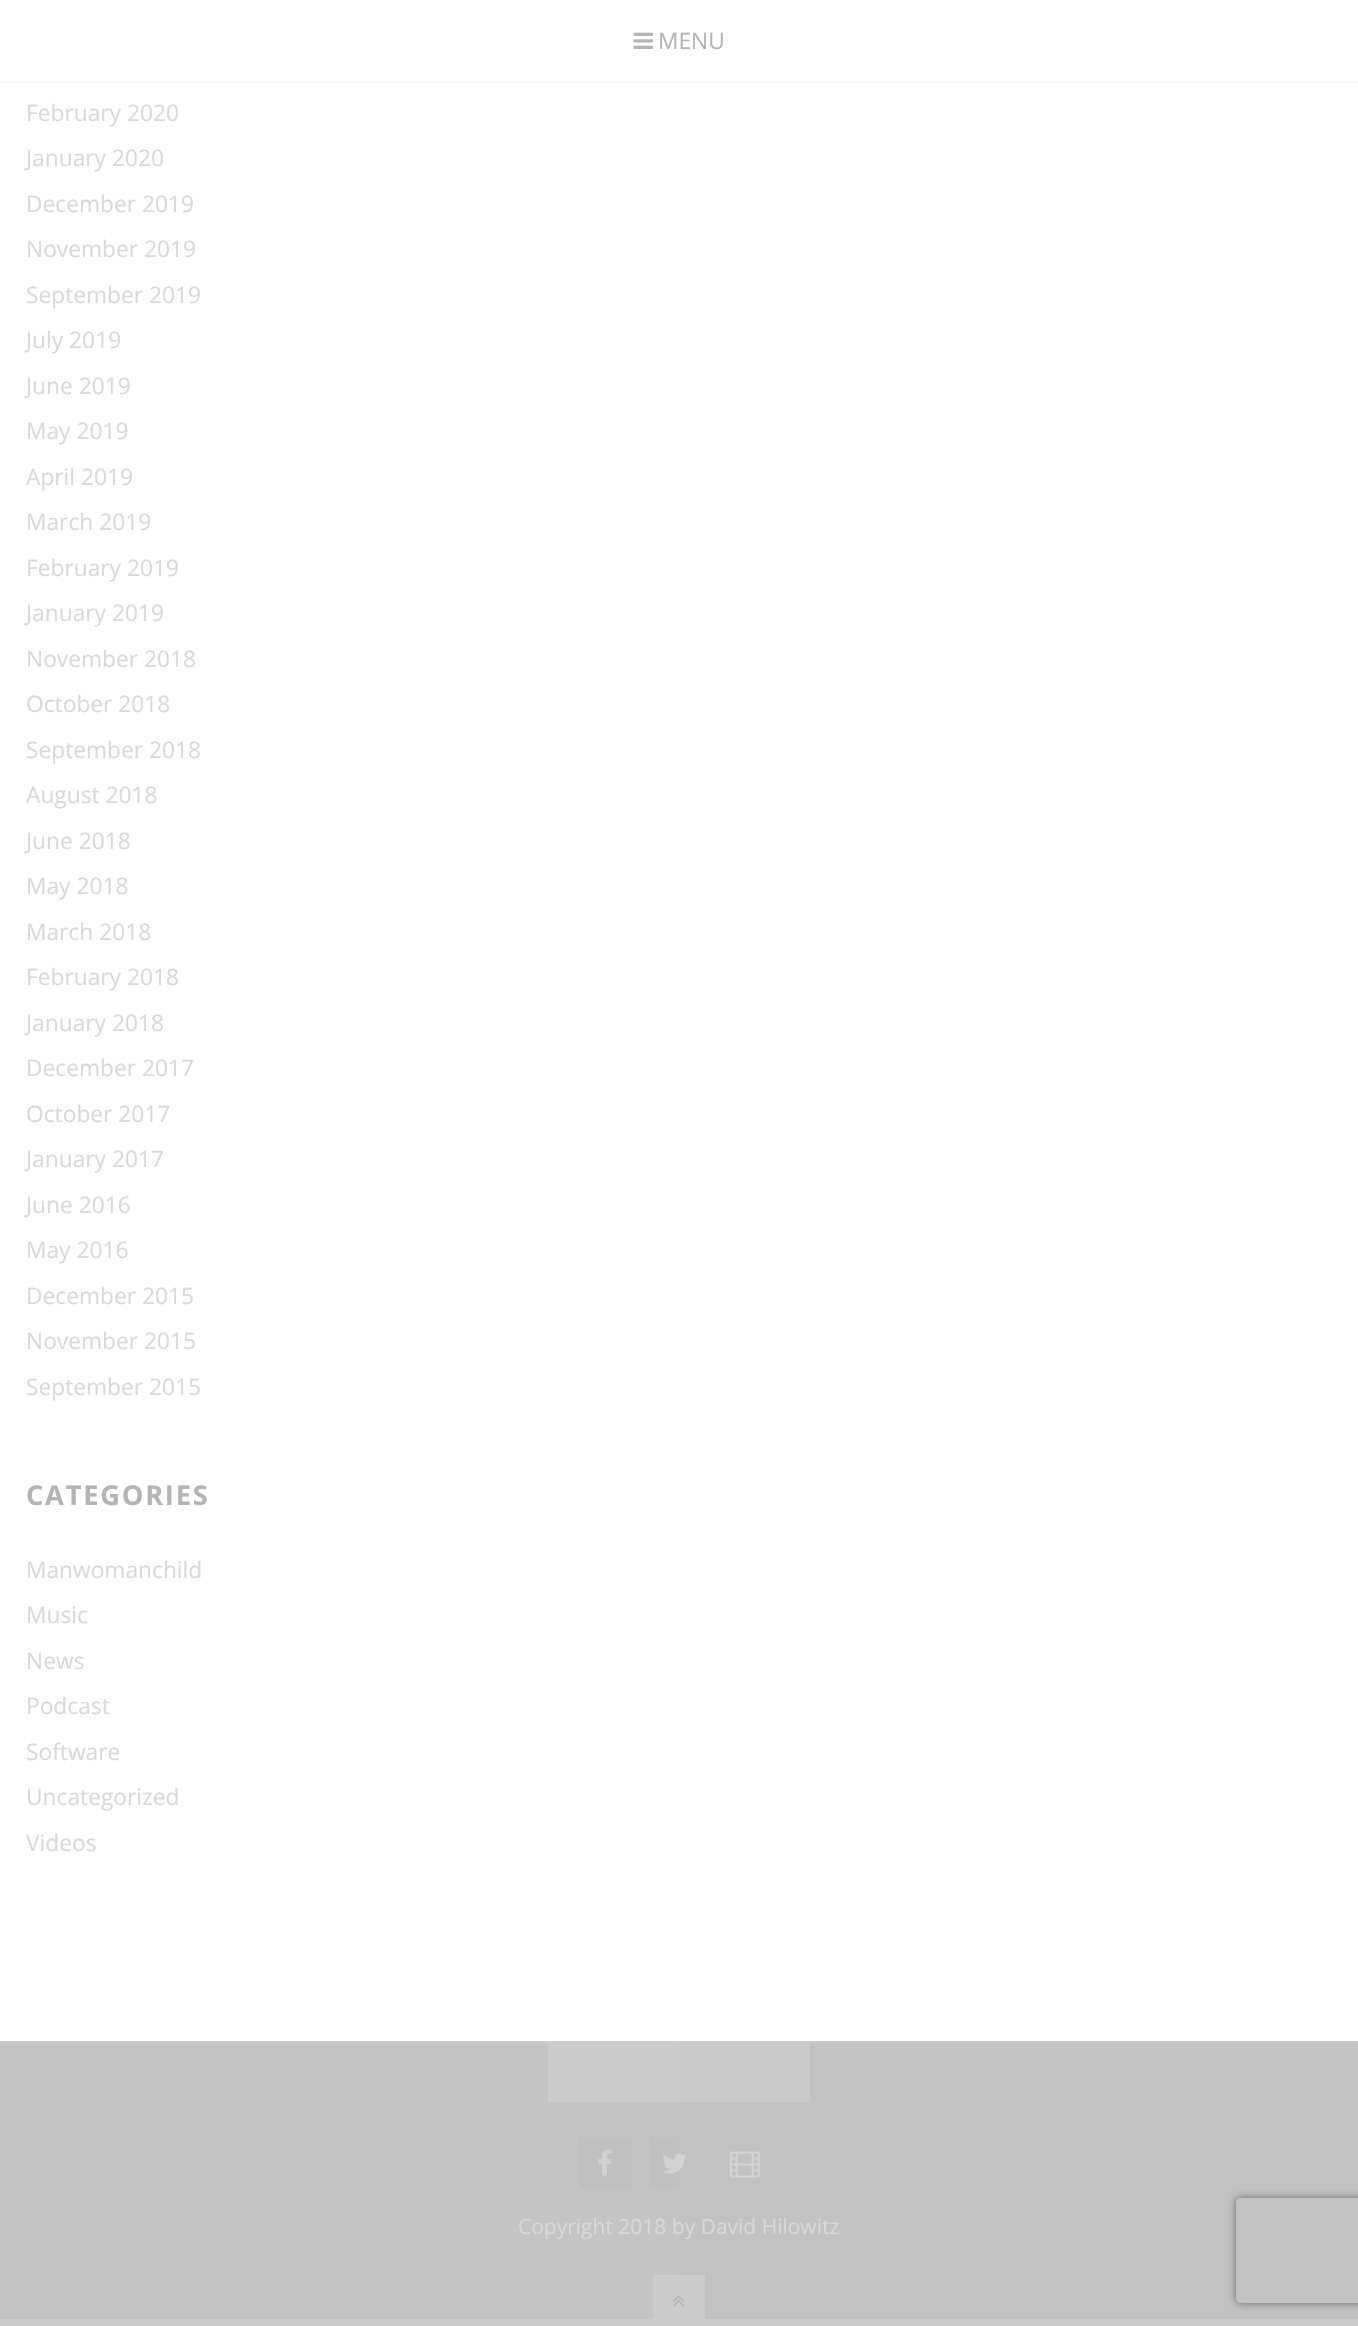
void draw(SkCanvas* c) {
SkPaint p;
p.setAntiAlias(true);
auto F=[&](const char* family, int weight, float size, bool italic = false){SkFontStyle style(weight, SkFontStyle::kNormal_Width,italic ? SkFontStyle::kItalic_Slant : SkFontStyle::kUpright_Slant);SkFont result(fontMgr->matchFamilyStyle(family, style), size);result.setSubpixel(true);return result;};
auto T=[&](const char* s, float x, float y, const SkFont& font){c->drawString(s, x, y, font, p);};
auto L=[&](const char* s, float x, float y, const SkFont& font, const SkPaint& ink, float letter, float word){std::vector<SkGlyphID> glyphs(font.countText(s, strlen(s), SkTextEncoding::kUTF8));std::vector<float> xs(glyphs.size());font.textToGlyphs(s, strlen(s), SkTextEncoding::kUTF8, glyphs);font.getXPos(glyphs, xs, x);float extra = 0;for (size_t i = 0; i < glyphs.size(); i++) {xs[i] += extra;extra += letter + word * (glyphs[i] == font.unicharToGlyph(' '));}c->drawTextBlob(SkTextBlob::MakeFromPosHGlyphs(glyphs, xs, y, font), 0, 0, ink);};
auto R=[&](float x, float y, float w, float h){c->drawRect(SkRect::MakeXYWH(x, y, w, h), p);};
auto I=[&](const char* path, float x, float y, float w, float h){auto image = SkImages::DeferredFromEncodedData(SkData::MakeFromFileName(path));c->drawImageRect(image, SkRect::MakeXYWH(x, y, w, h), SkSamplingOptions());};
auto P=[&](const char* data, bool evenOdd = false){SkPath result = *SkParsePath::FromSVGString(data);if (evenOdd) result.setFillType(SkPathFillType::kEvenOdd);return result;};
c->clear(0xffffffff);
p.setColor(0xffc4c4c4);
R(0,2043,679,276);
p.setColor(0xffc2c2c2);
R(679,2043,679,276);
p.setColor(0xfff9f9f9);
R(0,81,1358,2);
I("1.png",633,32,20,17);
auto f1 = F("Open Sans",400,22.75);
p.setColor(0xffb4b4b4);
T("MENU",658,49,f1);
p.setColor(0xffd9d9d9);
T("February 2020",26,121,f1);
T("January 2020",26,166,f1);
T("December 2019",26,212,f1);
T("November 2019",26,257,f1);
T("September 2019",26,303,f1);
T("July 2019",26,348,f1);
T("June 2019",26,394,f1);
T("May 2019",26,439,f1);
T("April 2019",26,485,f1);
T("March 2019",26,530,f1);
T("February 2019",26,576,f1);
T("January 2019",26,621,f1);
T("November 2018",26,667,f1);
T("October 2018",26,712,f1);
T("September 2018",26,758,f1);
T("August 2018",26,803,f1);
T("June 2018",26,849,f1);
T("May 2018",26,894,f1);
T("March 2018",26,940,f1);
T("February 2018",26,985,f1);
T("January 2018",26,1031,f1);
T("December 2017",26,1076,f1);
T("October 2017",26,1122,f1);
T("January 2017",26,1167,f1);
T("June 2016",26,1213,f1);
T("May 2016",26,1258,f1);
T("December 2015",26,1304,f1);
T("November 2015",26,1349,f1);
T("September 2015",26,1395,f1);
auto f2 = F("Open Sans",700,27.25);
p.setColor(0xffb4b4b4);
L("CATEGORIES",26,1505,f2,p,1.75,0);
p.setColor(0xffd9d9d9);
T("Manwomanchild",26,1578,f1);
T("Music",26,1623,f1);
T("News",26,1669,f1);
T("Podcast",26,1714,f1);
T("Software",26,1760,f1);
T("Uncategorized",26,1805,f1);
T("Videos",26,1851,f1);
p.setColor(0xffcccccc);
R(0,2041,1358,2);
R(0,2319,1358,7);
R(548,2043,131,59);
p.setColor(0xffcacaca);
R(679,2043,131,59);
p.setColor(0xffc0c0c0);
R(579,2137,53,52);
I("2.png",598,2149,14,27);
R(649,2137,30,52);
I("3.png",663,2153,24,21);
I("4.png",729,2151,31,27);
auto f3 = F("Open Sans",400,21);
p.setColor(0xffd9d9d9);
T("Copyright 2018 by David Hilowitz",518,2234,f3);
p.setColor(0xffcccccc);
R(653,2275,52,44);
I("5.png",673,2295,12,12);
c->save();
c->clipPath(P("M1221 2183h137v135h-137zm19 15h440c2 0 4 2 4 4v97c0 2-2 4-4 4h-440c-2 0-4-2-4-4v-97c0-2 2-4 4-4z",true),true);
p.setColor(0xff686868);
p.setMaskFilter(SkMaskFilter::MakeBlur(kNormal_SkBlurStyle, 4.5));
c->drawRoundRect(SkRect::MakeXYWH(1236,2198,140,105),4,4,p);
p.setMaskFilter(nullptr);
c->restore();
}
